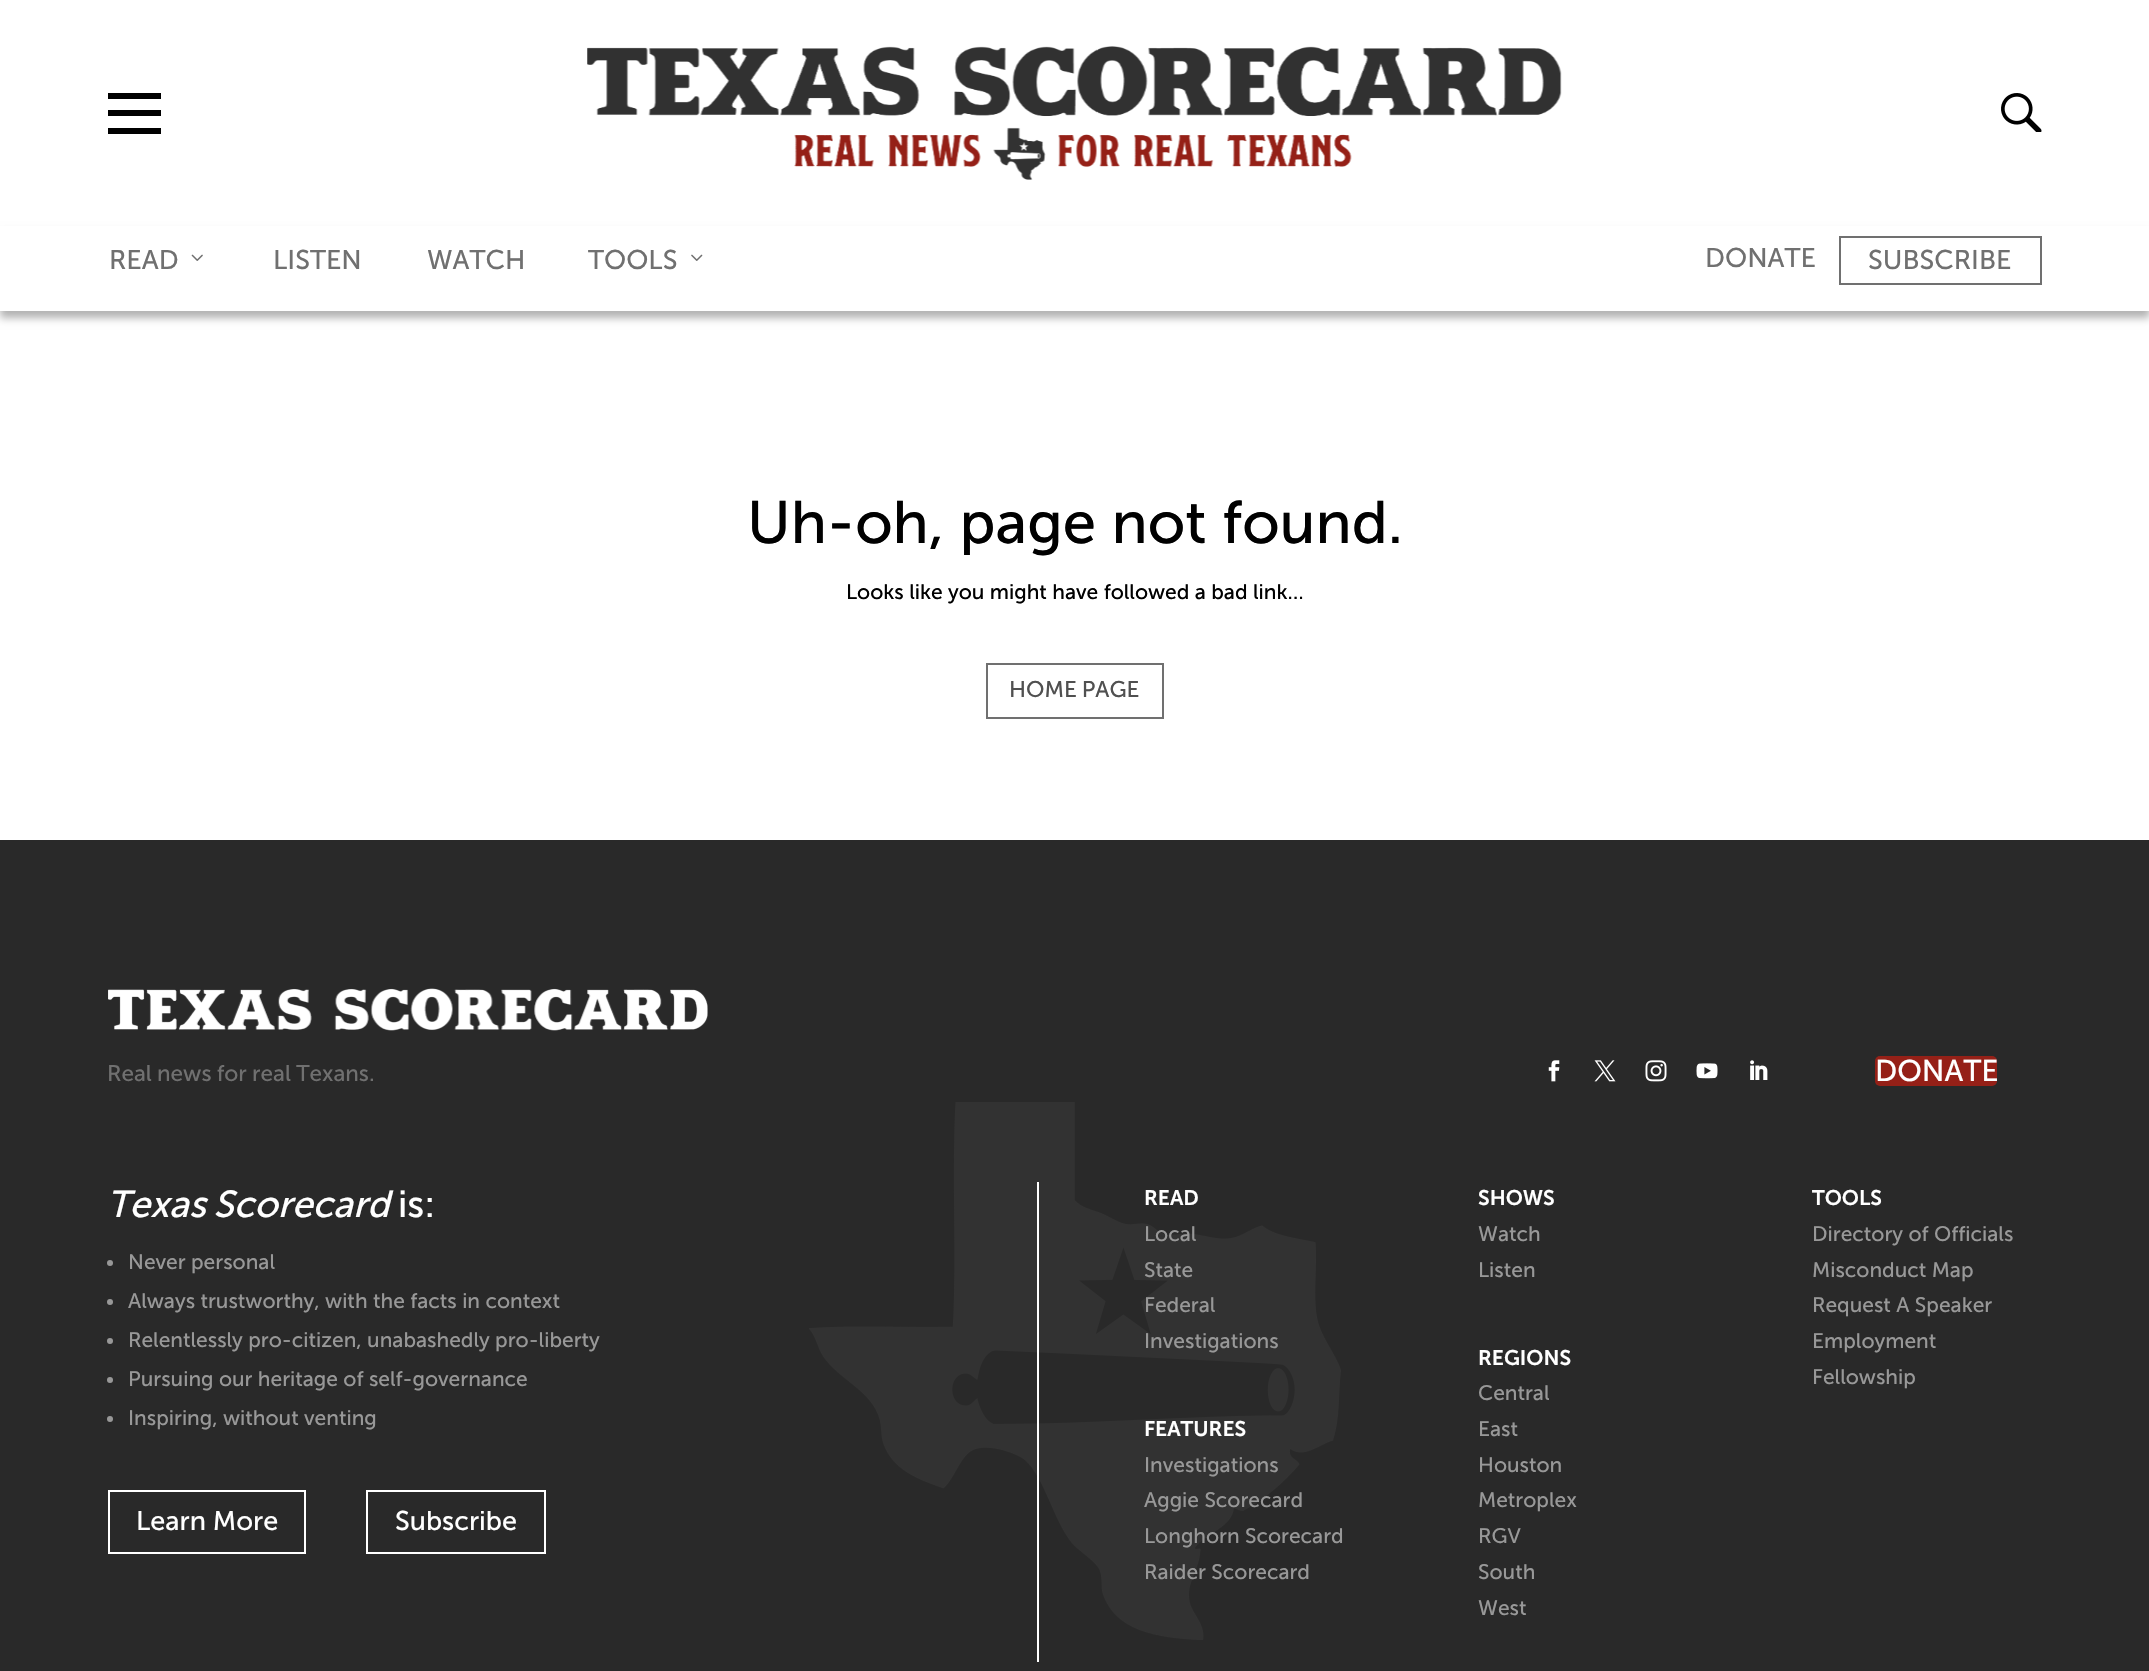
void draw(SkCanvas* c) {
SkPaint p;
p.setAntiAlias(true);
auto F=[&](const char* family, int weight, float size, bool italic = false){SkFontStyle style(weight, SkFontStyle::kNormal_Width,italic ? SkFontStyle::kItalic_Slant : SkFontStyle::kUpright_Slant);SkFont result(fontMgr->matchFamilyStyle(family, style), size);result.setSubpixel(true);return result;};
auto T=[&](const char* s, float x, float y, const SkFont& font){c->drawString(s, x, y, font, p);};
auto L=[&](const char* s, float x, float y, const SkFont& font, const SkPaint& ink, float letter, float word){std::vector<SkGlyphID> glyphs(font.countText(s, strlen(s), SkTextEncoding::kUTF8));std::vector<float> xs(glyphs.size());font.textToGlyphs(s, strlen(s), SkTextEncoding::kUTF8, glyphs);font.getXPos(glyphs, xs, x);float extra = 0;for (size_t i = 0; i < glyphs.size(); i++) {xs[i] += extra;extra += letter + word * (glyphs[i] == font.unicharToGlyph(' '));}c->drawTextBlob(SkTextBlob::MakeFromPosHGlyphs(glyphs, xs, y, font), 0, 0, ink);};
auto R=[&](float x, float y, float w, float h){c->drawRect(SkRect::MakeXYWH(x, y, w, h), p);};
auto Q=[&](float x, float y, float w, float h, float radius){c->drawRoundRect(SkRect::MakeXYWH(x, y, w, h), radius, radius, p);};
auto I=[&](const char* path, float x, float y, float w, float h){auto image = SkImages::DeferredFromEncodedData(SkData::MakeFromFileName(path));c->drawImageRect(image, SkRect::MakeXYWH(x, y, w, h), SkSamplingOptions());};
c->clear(0xffffffff);
p.setColor(0xff000000);
R(108,93,53,6);
R(108,110,53,6);
R(108,128,53,6);
I("1.png",587,46,975,134);
I("2.png",2001,93,41,39);
p.setColor(0x4d000000);
p.setMaskFilter(SkMaskFilter::MakeBlur(kNormal_SkBlurStyle, 4));
c->drawRect(SkRect::MakeXYWH(0,233,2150,85),p);
p.setMaskFilter(nullptr);
p.setColor(0xffffffff);
R(0,226,2149,85);
auto f1 = F("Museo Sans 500",400,27);
p.setColor(0xff707070);
T("READ",109,269,f1);
I("3.png",191,254,12,7);
T("LISTEN",273,269,f1);
T("WATCH",427,269,f1);
T("TOOLS",588,269,f1);
I("4.png",691,254,12,7);
T("DONATE",1705,267,f1);
p.setStroke(true);
p.setStrokeWidth(2);
c->drawRect(SkRect::MakeXYWH(1840,237,201,47),p);
p.setStroke(false);
T("SUBSCRIBE",1868,269,f1);
auto f2 = F("Museo Sans 500",400,60);
p.setColor(0xff000000);
T("Uh-oh, page not found.",747,543,f2);
auto f3 = F("Museo Sans 500",400,21);
T("Looks like you might have followed a bad link…",846,599,f3);
p.setStroke(true);
p.setColor(0xff707070);
c->drawRect(SkRect::MakeXYWH(987,664,176,54),p);
auto f4 = F("Museo Sans 500",400,22.5);
p.setStroke(false);
p.setColor(0xff505050);
L("HOME PAGE",1009,697,f4,p,0,-1);
p.setColor(0xff292929);
R(0,840,2149,831);
I("5.png",108,988,600,43);
p.setColor(0xff707070);
L("Real news for real Texans.",107,1081,f4,p,0,-.5);
I("6.png",1548,1060,12,22);
I("7.png",1594,1060,22,22);
I("8.png",1645,1060,22,22);
I("9.png",1696,1063,22,16);
I("10.png",1750,1060,18,20);
p.setColor(0xff952017);
Q(1875,1056,122,30,5);
auto f5 = F("Museo Sans 500",400,30);
p.setColor(0xffffffff);
T("DONATE",1875,1081,f5);
I("11.png",809,1102,532,538);
R(1037,1182,2,480);
auto f6 = F("Museo Sans 500",400,37.5,true);
L("Texas Scorecard",107,1217,f6,p,0,-2);
auto f7 = F("Museo Sans 500",400,37.5);
T("is:",398,1217,f7);
p.setColor(0xff989898);
c->drawCircle(110,1263,3,p);
T("Never personal",128,1269,f3);
c->drawCircle(110,1302,3,p);
T("Always trustworthy, with the facts in context",128,1308,f3);
c->drawCircle(110,1341,3,p);
T("Relentlessly pro-citizen, unabashedly pro-liberty",128,1347,f3);
c->drawCircle(110,1380,3,p);
T("Pursuing our heritage of self-governance",128,1386,f3);
c->drawCircle(110,1419,3,p);
T("Inspiring, without venting",128,1425,f3);
p.setStroke(true);
p.setColor(0xffffffff);
c->drawRect(SkRect::MakeXYWH(109,1491,196,62),p);
p.setStroke(false);
T("Learn More",136,1530,f1);
p.setStroke(true);
c->drawRect(SkRect::MakeXYWH(367,1491,178,62),p);
p.setStroke(false);
T("Subscribe",395,1530,f1);
auto f8 = F("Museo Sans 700",600,21);
T("READ",1144,1205,f8);
p.setColor(0xff989898);
T("Local",1144,1241,f3);
T("State",1144,1277,f3);
T("Federal",1144,1312,f3);
T("Investigations",1144,1348,f3);
p.setColor(0xffffffff);
T("FEATURES",1144,1436,f8);
p.setColor(0xff989898);
T("Investigations",1144,1472,f3);
T("Aggie Scorecard",1144,1507,f3);
T("Longhorn Scorecard",1144,1543,f3);
T("Raider Scorecard",1144,1579,f3);
p.setColor(0xffffffff);
T("SHOWS",1478,1205,f8);
p.setColor(0xff989898);
T("Watch",1478,1241,f3);
T("Listen",1478,1277,f3);
p.setColor(0xffffffff);
T("REGIONS",1478,1365,f8);
p.setColor(0xff989898);
T("Central",1478,1400,f3);
T("East",1478,1436,f3);
T("Houston",1478,1472,f3);
T("Metroplex",1478,1507,f3);
T("RGV",1478,1543,f3);
T("South",1478,1579,f3);
T("West",1478,1615,f3);
p.setColor(0xffffffff);
T("TOOLS",1812,1205,f8);
p.setColor(0xff989898);
T("Directory of Officials",1812,1241,f3);
T("Misconduct Map",1812,1277,f3);
T("Request A Speaker",1812,1312,f3);
T("Employment",1812,1348,f3);
T("Fellowship",1812,1384,f3);
}
